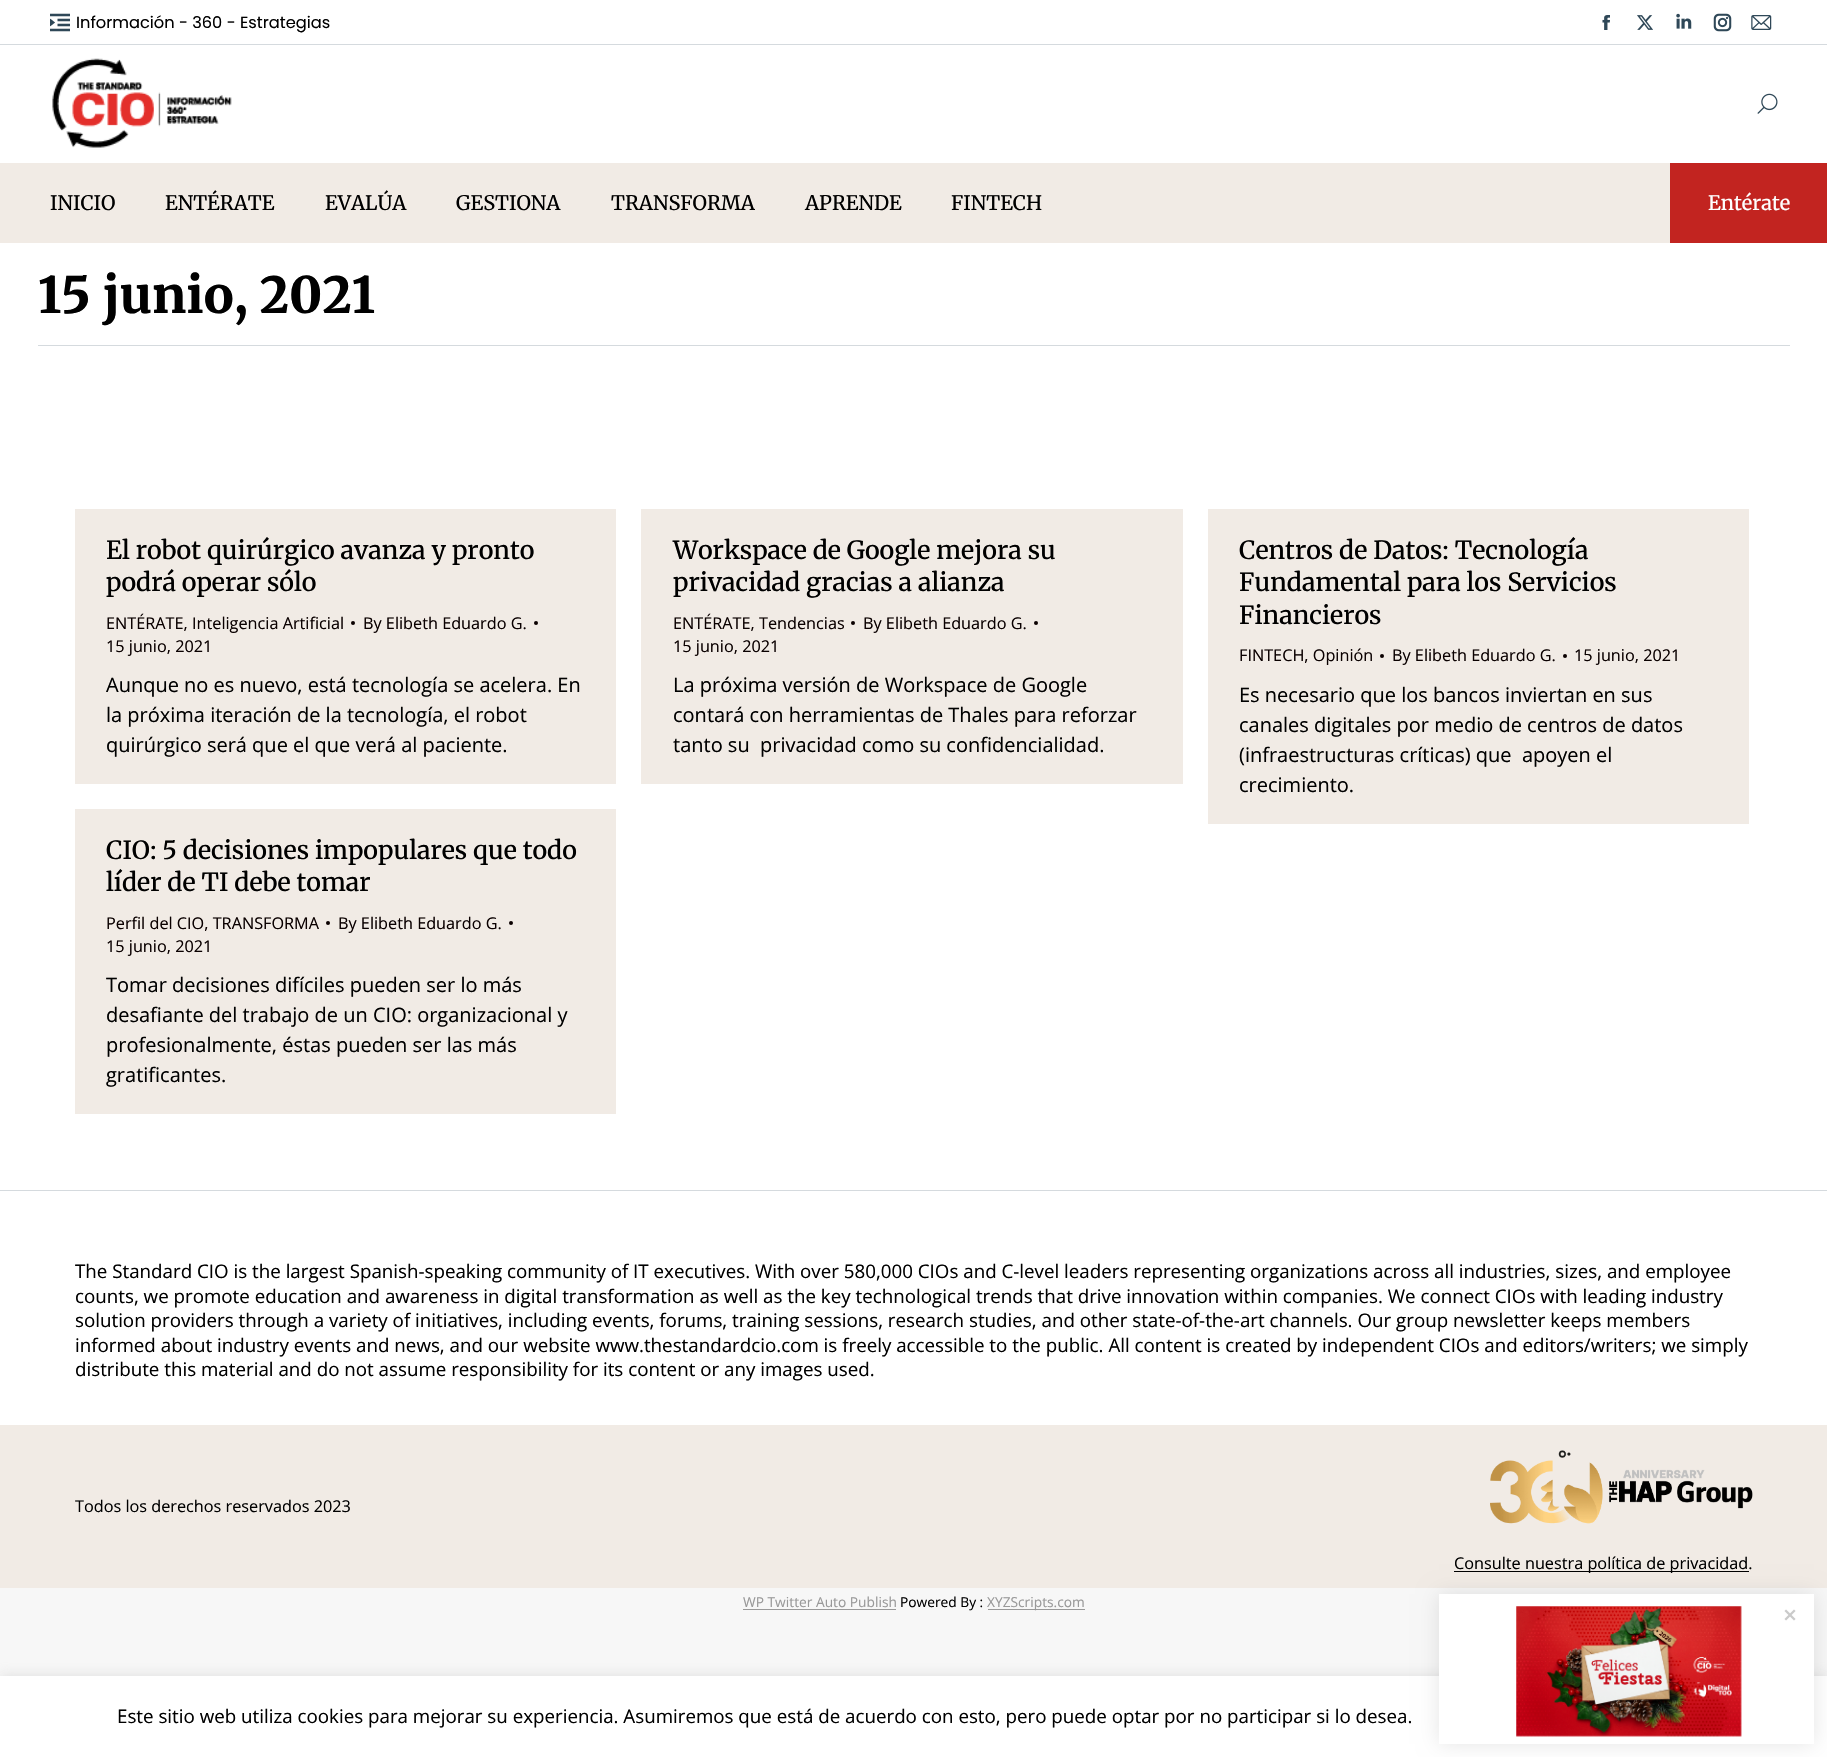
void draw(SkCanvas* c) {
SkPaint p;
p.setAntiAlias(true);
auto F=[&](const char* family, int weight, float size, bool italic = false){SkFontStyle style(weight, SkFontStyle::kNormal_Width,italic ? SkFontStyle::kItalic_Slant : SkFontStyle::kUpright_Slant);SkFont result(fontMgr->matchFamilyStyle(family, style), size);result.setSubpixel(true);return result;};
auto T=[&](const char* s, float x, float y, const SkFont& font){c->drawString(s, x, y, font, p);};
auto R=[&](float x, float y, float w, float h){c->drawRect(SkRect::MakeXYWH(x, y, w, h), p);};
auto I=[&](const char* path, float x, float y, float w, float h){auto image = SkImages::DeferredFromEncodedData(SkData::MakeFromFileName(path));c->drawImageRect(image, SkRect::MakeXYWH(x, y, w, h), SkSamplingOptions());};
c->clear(0xfff7f7f7);
p.setColor(0xffffffff);
R(0,0,1827,1425);
I("1.png",50,13,20,19);
auto f1 = F("Poppins",400,16.25);
p.setColor(0xff000000);
T("Información - 360 - Estrategias",76,28,f1);
I("2.png",1602,15,8,15);
I("3.png",1637,15,16,15);
I("4.png",1676,13,16,16);
I("5.png",1713,13,19,19);
I("6.png",1751,15,21,15);
p.setColor(0xffd5dade);
R(0,44,1827,1);
I("7.png",52,58,180,90);
I("8.png",1757,93,21,21);
p.setColor(0xfff1ebe5);
R(0,163,1670,80);
auto f2 = F("Merriweather",400,20);
p.setColor(0xff000000);
T("INICIO",50,210,f2);
T("ENTÉRATE",165,210,f2);
T("EVALÚA",325,210,f2);
T("GESTIONA",456,210,f2);
T("TRANSFORMA",611,210,f2);
T("APRENDE",805,210,f2);
T("FINTECH",951,210,f2);
p.setColor(0xffc22420);
R(1670,163,157,80);
p.setColor(0xffffffff);
T("Entérate",1708,210,f2);
p.setColor(0xffd5dade);
R(38,345,1752,1);
auto f3 = F("Merriweather",800,50);
p.setColor(0xff000000);
T("15 junio, 2021",38,313,f3);
p.setColor(0xfff1ebe5);
R(75,509,541,275);
auto f4 = F("Merriweather",500,25);
p.setColor(0xff000000);
T("El robot quirúrgico avanza y pronto",106,559,f4);
T("podrá operar sólo",106,591,f4);
auto f5 = F("Open Sans",400,16.25);
p.setColor(0xff0a0000);
T("ENTÉRATE, Inteligencia Artificial",106,629,f5);
c->drawCircle(353,623,2,p);
T("By Elibeth Eduardo G.",363,629,f5);
c->drawCircle(536,623,2,p);
T("15 junio, 2021",106,652,f5);
auto f6 = F("Open Sans",400,20);
p.setColor(0xff000000);
T("Aunque no es nuevo, está tecnología se acelera. En",106,692,f6);
T("la próxima iteración de la tecnología, el robot",106,722,f6);
T("quirúrgico será que el que verá al paciente.",106,752,f6);
p.setColor(0xfff1ebe5);
R(641,509,542,275);
p.setColor(0xff000000);
T("Workspace de Google mejora su",673,559,f4);
T("privacidad gracias a alianza",673,591,f4);
p.setColor(0xff0a0000);
T("ENTÉRATE, Tendencias",673,629,f5);
c->drawCircle(853,623,2,p);
T("By Elibeth Eduardo G.",863,629,f5);
c->drawCircle(1036,623,2,p);
T("15 junio, 2021",673,652,f5);
p.setColor(0xff000000);
T("La próxima versión de Workspace de Google",673,692,f6);
T("contará con herramientas de Thales para reforzar",673,722,f6);
T("tanto su  privacidad como su confidencialidad.",673,752,f6);
p.setColor(0xfff1ebe5);
R(1208,509,541,315);
p.setColor(0xff000000);
T("Centros de Datos: Tecnología",1239,559,f4);
T("Fundamental para los Servicios",1239,591,f4);
T("Financieros",1239,624,f4);
p.setColor(0xff0a0000);
T("FINTECH, Opinión",1239,661,f5);
c->drawCircle(1382,656,2,p);
T("By Elibeth Eduardo G.",1392,661,f5);
c->drawCircle(1565,656,2,p);
T("15 junio, 2021",1574,661,f5);
p.setColor(0xff000000);
T("Es necesario que los bancos inviertan en sus",1239,702,f6);
T("canales digitales por medio de centros de datos",1239,732,f6);
T("(infraestructuras críticas) que  apoyen el",1239,762,f6);
T("crecimiento.",1239,792,f6);
p.setColor(0xfff1ebe5);
R(75,809,541,305);
p.setColor(0xff000000);
T("CIO: 5 decisiones impopulares que todo",106,859,f4);
T("líder de TI debe tomar",106,891,f4);
p.setColor(0xff0a0000);
T("Perfil del CIO, TRANSFORMA",106,929,f5);
c->drawCircle(328,923,2,p);
T("By Elibeth Eduardo G.",338,929,f5);
c->drawCircle(511,923,2,p);
T("15 junio, 2021",106,952,f5);
p.setColor(0xff000000);
T("Tomar decisiones difíciles pueden ser lo más",106,992,f6);
T("desafiante del trabajo de un CIO: organizacional y",106,1022,f6);
T("profesionalmente, éstas pueden ser las más",106,1052,f6);
T("gratificantes.",106,1082,f6);
p.setColor(0xffd5dade);
R(0,1190,1827,1);
auto f7 = F("Open Sans",400,18.75);
p.setColor(0xff000000);
T("The Standard CIO is the largest Spanish-speaking community of IT executives. With over 580,000 CIOs and C-level leaders representing organizations across all industries, sizes, and employee",75,1278,f7);
T("counts, we promote education and awareness in digital transformation as well as the key technological trends that drive innovation within companies. We connect CIOs with leading industry",75,1303,f7);
T("solution providers through a variety of initiatives, including events, forums, training sessions, research studies, and other state-of-the-art channels. Our group newsletter keeps members",75,1327,f7);
T("informed about industry events and news, and our website www.thestandardcio.com is freely accessible to the public. All content is created by independent CIOs and editors/writers; we simply",75,1352,f7);
T("distribute this material and do not assume responsibility for its content or any images used.",75,1376,f7);
p.setColor(0xfff1ebe5);
R(0,1425,1827,163);
p.setColor(0xff000000);
T("Todos los derechos reservados 2023",75,1512,f5);
I("9.png",1490,1450,263,74);
R(1454,1571,295,1);
T("Consulte nuestra política de privacidad.",1454,1569,f5);
auto f8 = F("Open Sans",400,13.75);
p.setColor(0xff999999);
T("WP Twitter Auto Publish",743,1607,f8);
R(743,1609,153,1);
p.setColor(0xff000000);
T("Powered By :",900,1607,f8);
p.setColor(0xff999999);
R(988,1609,97,1);
T("XYZScripts.com",987,1607,f8);
p.setColor(0x4dacabab);
p.setMaskFilter(SkMaskFilter::MakeBlur(kNormal_SkBlurStyle, 6));
c->drawRect(SkRect::MakeXYWH(0,1675,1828,81),p);
p.setMaskFilter(nullptr);
p.setColor(0xffffffff);
R(0,1676,1827,81);
p.setColor(0x1a000000);
p.setMaskFilter(SkMaskFilter::MakeBlur(kNormal_SkBlurStyle, 10));
c->drawRect(SkRect::MakeXYWH(1439,1594,375,150),p);
p.setMaskFilter(nullptr);
p.setColor(0xffffffff);
R(1439,1594,375,150);
I("10.png",1516,1606,226,131);
I("11.png",1784,1609,12,12);
p.setColor(0xff000000);
T("Este sitio web utiliza cookies para mejorar su experiencia. Asumiremos que está de acuerdo con esto, pero puede optar por no participar si lo desea.",117,1723,f7);
}
